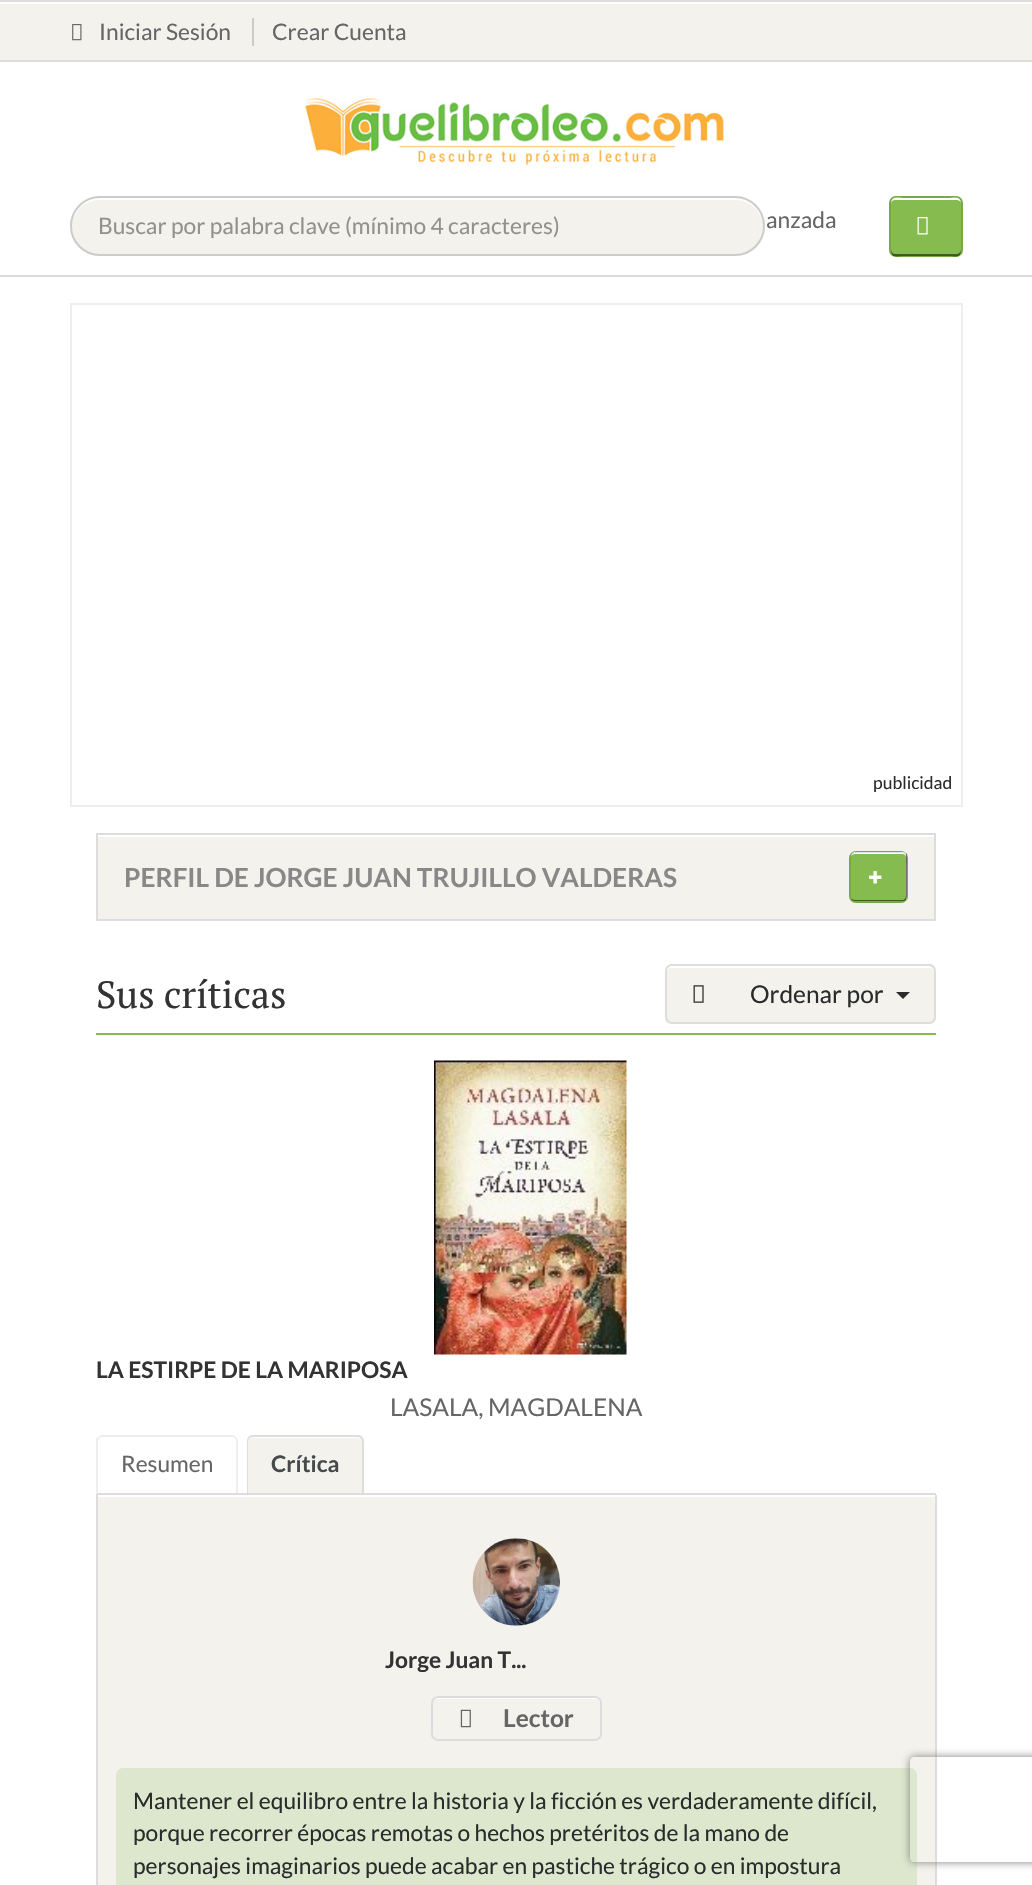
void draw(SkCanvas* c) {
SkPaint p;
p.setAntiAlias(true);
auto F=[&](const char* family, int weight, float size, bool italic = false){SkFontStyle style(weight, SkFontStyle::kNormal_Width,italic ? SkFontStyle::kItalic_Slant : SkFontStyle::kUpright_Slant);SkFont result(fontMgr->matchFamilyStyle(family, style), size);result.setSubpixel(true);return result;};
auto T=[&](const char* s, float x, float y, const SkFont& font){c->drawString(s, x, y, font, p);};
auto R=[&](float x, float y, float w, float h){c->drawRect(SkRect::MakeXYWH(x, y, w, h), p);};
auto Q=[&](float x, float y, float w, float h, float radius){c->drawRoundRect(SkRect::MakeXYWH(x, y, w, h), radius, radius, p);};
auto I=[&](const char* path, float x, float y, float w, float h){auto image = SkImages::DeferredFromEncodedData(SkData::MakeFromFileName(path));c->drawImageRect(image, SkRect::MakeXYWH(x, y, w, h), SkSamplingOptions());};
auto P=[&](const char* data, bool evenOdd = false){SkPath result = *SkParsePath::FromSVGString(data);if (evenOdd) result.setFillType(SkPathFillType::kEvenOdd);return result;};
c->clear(0xffffffff);
p.setColor(0xffdddddd);
R(0,275,1032,2);
p.setColor(0xfff3f2ed);
R(0,4,1032,56);
p.setColor(0xffdddddd);
R(0,0,1032,2);
R(0,60,1032,2);
p.setColor(0xffcccccc);
R(252,18,2,28);
I("1.png",72,24,10,17);
auto f1 = F("Lato",400,22.75);
p.setColor(0xff666666);
T("Iniciar Sesión",99,40,f1);
T("Crear Cuenta",272,40,f1);
I("2.png",305,98,419,68);
p.setColor(0xfff3f2ed);
Q(70,196,695,60,30);
p.setColor(0xffffffff);
c->drawPath(P("M100 200h635c15 0 27 11 28 27c1-16-12-29-28-29h-635c-16 0-29 13-28 29c1-16 12-27 28-27z"),p);
p.setStroke(true);
p.setStrokeWidth(2);
p.setColor(0xffcccccc);
c->drawRoundRect(SkRect::MakeXYWH(71,197,693,58),29,29,p);
p.setStroke(false);
p.setColor(0xff92918e);
T("Buscar por palabra clave (mínimo 4 caracteres)",98,234,f1);
p.setColor(0xff666666);
T("anzada",766,228,f1);
p.setColor(0xff86bb50);
Q(889,196,74,61,7);
p.setColor(0xffffffff);
c->drawPath(P("M895 200h61c3 0 5 1 5 4c0-9-7-6-14-6h-42c-7 0-14-3-14 6c0-3 2-4 4-4z"),p);
p.setColor(0xff435e28);
c->drawPath(P("M891 249c0 10 5 7 14 7h42c9 0 14 3 14-7c0 3-2 5-5 5h-61c-2 0-4-2-4-5z"),p);
p.setStroke(true);
p.setColor(0x1a000000);
c->drawRoundRect(SkRect::MakeXYWH(890,197,72,59),6,6,p);
I("3.png",917,217,11,18);
p.setColor(0xffeeeeee);
c->drawRect(SkRect::MakeXYWH(71,304,891,502),p);
auto f2 = F("Lato",400,17.5);
p.setStroke(false);
p.setColor(0xff292b2c);
T("publicidad",873,789,f2);
p.setColor(0xfff3f2ed);
R(98,837,836,82);
p.setStroke(true);
p.setColor(0xffdddddd);
c->drawRect(SkRect::MakeXYWH(97,834,838,86),p);
auto f3 = F("Lato",700,26.25);
p.setStroke(false);
p.setColor(0xff888888);
T("PERFIL DE JORGE JUAN TRUJILLO VALDERAS",124,887,f3);
p.setColor(0xff86bb50);
Q(849,851,59,52,7);
p.setColor(0xffffffff);
c->drawPath(P("M855 854h48c5 1 3 8 3 11v35c1-1 1-2 1-3v-41c0-2-2-4-4-4h-48c-2 0-4 2-4 4c1-1 2-2 4-2z"),p);
p.setColor(0x80000000);
c->drawPath(P("M851 899c1 1 2 2 4 2h48c2 0 4-2 4-4v-41c0-1 0-2-1-3v42c0 3-1 5-4 5h-47c-2 0-3-1-4-1z"),p);
p.setStroke(true);
p.setColor(0x1a000000);
c->drawRoundRect(SkRect::MakeXYWH(850,852,57,50),6,6,p);
auto f4 = F("Noto Sans",900,24.5);
p.setStroke(false);
p.setColor(0xffffffff);
T("+",868,886,f4);
p.setColor(0xff86bb50);
R(96,1033,840,2);
auto f5 = F("PT Serif",400,38);
p.setColor(0xff333333);
T("Sus críticas",96,1008,f5);
p.setColor(0xfff3f2ed);
Q(665,964,271,60,7);
p.setColor(0xffffffff);
c->drawPath(P("M671 968h259c3 0 4 2 4 4v49c1-1 1-2 1-3v-48c0-2-2-4-4-4h-260c-2 0-4 2-4 4v2c0-2 2-4 4-4z"),p);
p.setStroke(true);
p.setColor(0xffdddddd);
c->drawRoundRect(SkRect::MakeXYWH(666,965,269,58),6,6,p);
I("4.png",693,985,11,18);
auto f6 = F("Lato",400,24.5);
p.setStroke(false);
p.setColor(0xff292b2c);
T("Ordenar por",750,1003,f6);
c->drawPath(P("M896 992h14l-7 7z"),p);
I("5.png",434,1060,193,295);
auto f7 = F("Lato",700,22.75);
p.setColor(0xff333333);
T("LA ESTIRPE DE LA MARIPOSA",96,1378,f7);
p.setColor(0xff666666);
T("LASALA, MAGDALENA",390,1416,f6);
p.setColor(0xffdddddd);
R(96,1493,840,2);
p.setColor(0xffeceeef);
c->drawPath(P("M102 1435c-1 0-3 1-4 2l1 1l3-1h130l3 1l1-1c-1-1-2-2-4-2z"),p);
c->drawPath(P("M238 1494v-53c0-1-1-3-2-4l-1 1l1 3v51z"),p);
p.setColor(0xffdddddd);
c->drawPath(P("M238 1494h-141l1-1h138v-1z"),p);
p.setColor(0xffeceeef);
c->drawPath(P("M96 1439l2-2l1 1l-1 3v52l-1 1h-1z"),p);
p.setColor(0xff666666);
T("Resumen",121,1472,f1);
p.setColor(0xfff3f2ed);
c->drawPath(P("M254 1435h103c4 0 7 3 7 7v51h-117v-51c0-4 3-7 7-7z"),p);
p.setColor(0xffffffff);
c->drawPath(P("M253 1438h105c2 0 4 2 4 5v-2c0-2-2-4-4-4h-105c-2 0-3 1-4 2c1 0 2-1 4-1z"),p);
p.setColor(0xffdddddd);
c->drawPath(P("M253 1435h105c3 0 6 3 6 6v52h-117v-52c0-3 2-6 6-6zm0 2h105c2 0 4 2 4 4v52h-114v-52c0-2 2-4 5-4z",true),p);
p.setColor(0xff464a4c);
T("Crítica",271,1472,f7);
p.setColor(0xfff3f2ed);
R(98,1497,837,388);
p.setColor(0xffdddddd);
R(935,1495,2,390);
R(96,1495,2,390);
I("6.png",472,1538,88,88);
p.setColor(0xff333333);
T("Jorge Juan T...",385,1668,f7);
p.setColor(0xffffffff);
c->drawPath(P("M437 1699h159c2 0 4 2 4 5v-2c0-2-2-4-4-4h-160c-2 0-4 2-4 4v2c0-3 2-5 5-5z"),p);
p.setStroke(true);
p.setColor(0xffdddddd);
c->drawRoundRect(SkRect::MakeXYWH(432,1697,169,43),6,6,p);
I("7.png",460,1709,11,19);
auto f8 = F("Lato",700,24.5);
p.setStroke(false);
p.setColor(0xff666666);
T("Lector",503,1727,f8);
p.setColor(0xffdde7cd);
Q(116,1768,801,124,7);
p.setColor(0xff292b2c);
T("Mantener el equilibro entre la historia y la ficción es verdaderamente difícil,",133,1809,f1);
T("porque recorrer épocas remotas o hechos pretéritos de la mano de",133,1841,f1);
T("personajes imaginarios puede acabar en pastiche trágico o en impostura",133,1874,f1);
c->save();
c->clipPath(P("M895 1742h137v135h-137zm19 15h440c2 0 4 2 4 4v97c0 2-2 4-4 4h-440c-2 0-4-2-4-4v-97c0-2 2-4 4-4z",true),true);
p.setColor(0xff808080);
p.setMaskFilter(SkMaskFilter::MakeBlur(kNormal_SkBlurStyle, 4.5));
c->drawRoundRect(SkRect::MakeXYWH(910,1757,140,105),4,4,p);
p.setMaskFilter(nullptr);
c->restore();
}
